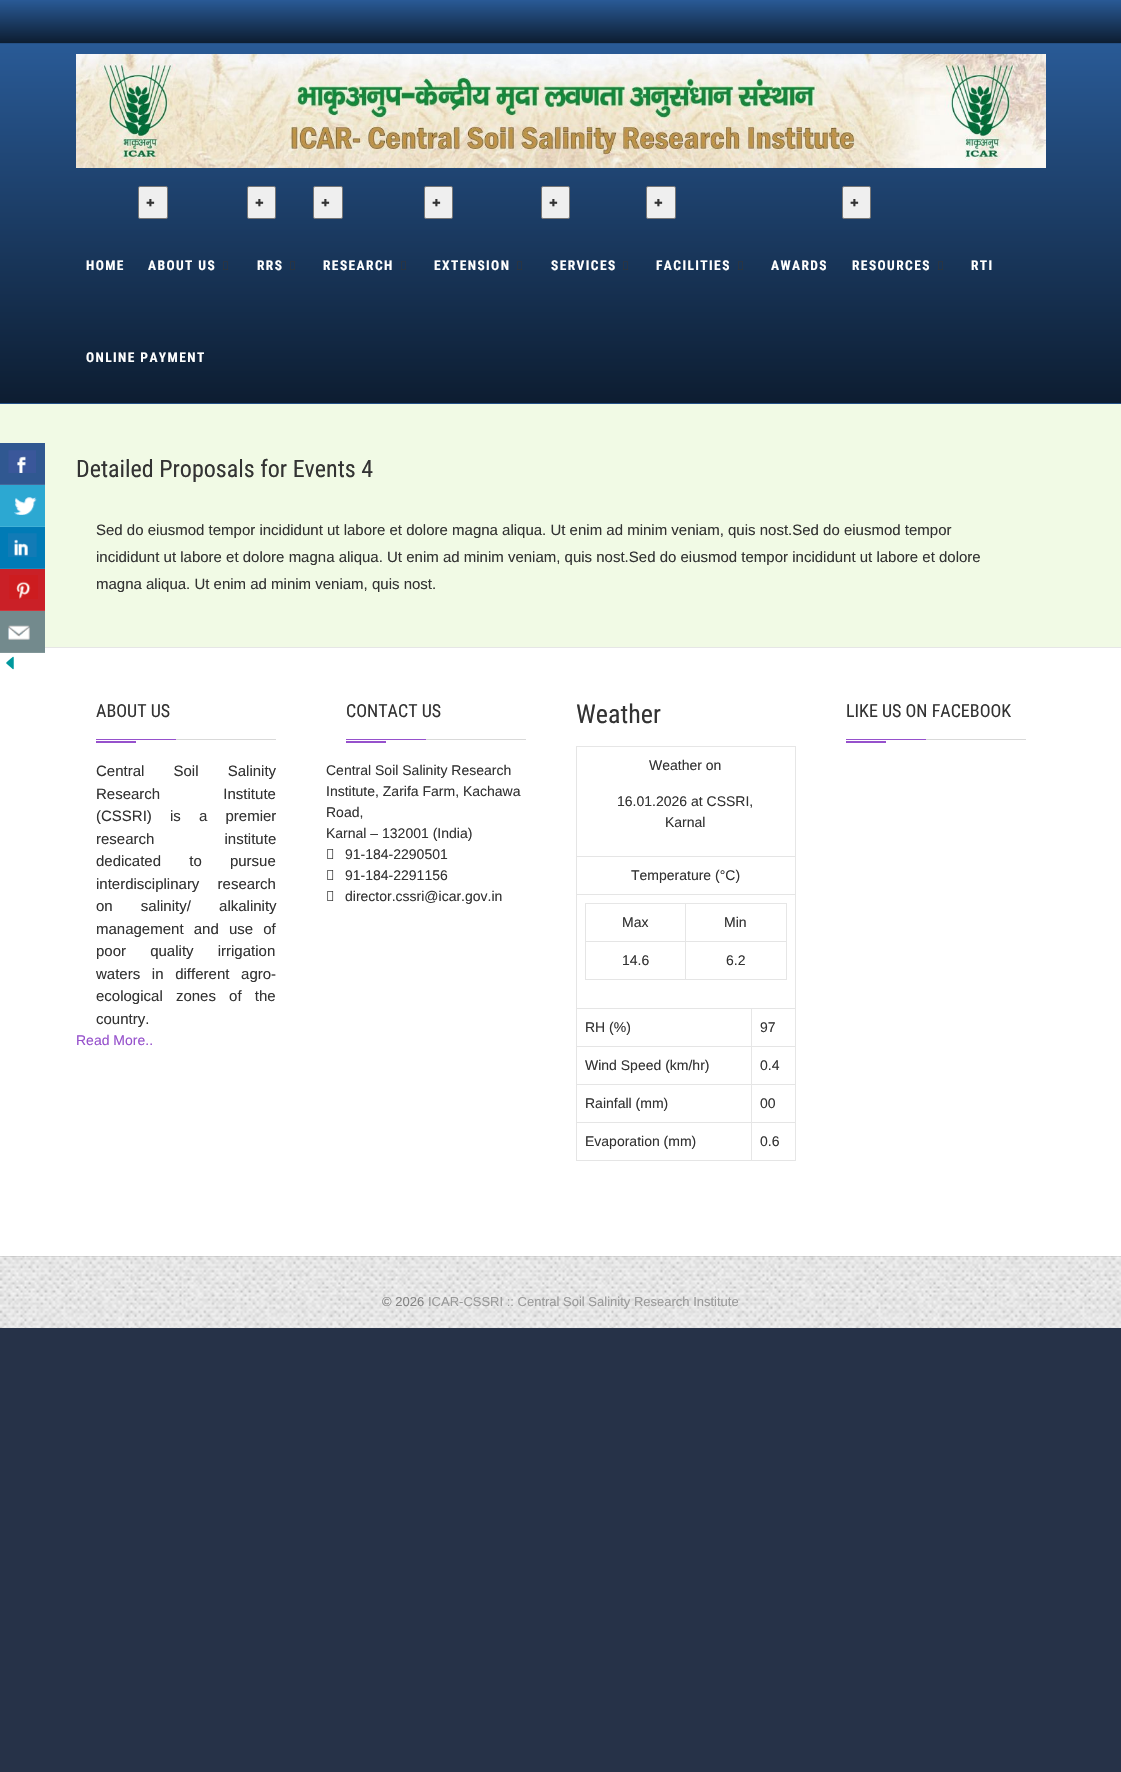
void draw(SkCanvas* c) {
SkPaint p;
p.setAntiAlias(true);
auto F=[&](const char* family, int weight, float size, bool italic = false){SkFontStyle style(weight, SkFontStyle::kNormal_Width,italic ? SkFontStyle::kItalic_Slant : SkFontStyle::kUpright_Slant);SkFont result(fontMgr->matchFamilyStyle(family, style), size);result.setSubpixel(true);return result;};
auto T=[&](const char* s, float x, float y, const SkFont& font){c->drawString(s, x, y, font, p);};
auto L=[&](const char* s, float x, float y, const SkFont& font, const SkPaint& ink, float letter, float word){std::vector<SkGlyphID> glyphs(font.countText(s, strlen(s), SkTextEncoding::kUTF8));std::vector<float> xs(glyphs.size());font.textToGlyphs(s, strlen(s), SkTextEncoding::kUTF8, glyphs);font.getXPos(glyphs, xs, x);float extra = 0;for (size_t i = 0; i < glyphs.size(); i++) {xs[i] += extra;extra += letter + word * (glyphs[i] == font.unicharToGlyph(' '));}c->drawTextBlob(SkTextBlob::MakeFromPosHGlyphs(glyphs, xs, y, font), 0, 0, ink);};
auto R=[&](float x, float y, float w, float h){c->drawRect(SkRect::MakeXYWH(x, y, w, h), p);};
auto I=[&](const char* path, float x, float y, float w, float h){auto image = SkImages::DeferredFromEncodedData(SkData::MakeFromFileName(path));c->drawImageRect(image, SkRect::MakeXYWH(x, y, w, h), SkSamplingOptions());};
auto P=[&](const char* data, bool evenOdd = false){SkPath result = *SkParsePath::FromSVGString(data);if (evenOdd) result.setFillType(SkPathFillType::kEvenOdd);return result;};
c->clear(0xff263248);
p.setColor(0xfff1fae5);
R(0,404,1121,243);
p.setColor(0xff305891);
R(0,443,45,41);
p.setColor(0xff45699c);
R(0,484,45,1);
I("1.png",8,450,28,23);
p.setColor(0xff2ca8d2);
R(0,485,45,41);
p.setColor(0xff41b1d7);
R(0,526,45,1);
I("2.png",14,497,23,18);
p.setColor(0xff007bb6);
R(0,527,45,41);
p.setColor(0xff1a88bd);
R(0,568,45,1);
I("3.png",8,533,29,24);
p.setColor(0xffca2027);
R(0,569,45,41);
p.setColor(0xffcf363d);
R(0,610,45,1);
I("4.png",9,575,29,24);
p.setColor(0xffffffff);
R(0,648,1121,608);
p.setColor(0xff738a8d);
R(0,611,45,41);
p.setColor(0xff819698);
R(0,652,45,1);
I("5.png",8,625,22,15);
I("6.png",6,656,8,14);
{
const SkColor colors[] = {0xff0d1d31,0xff295a96};
const float stops[] = {0,1};
const SkPoint ends[] = {{561,43}, {561,0}};
p.setShader(SkGradientShader::MakeLinear(ends, colors, stops, 2, SkTileMode::kClamp));
p.setAlpha(255);
}
R(0,0,1121,43);
p.setShader(nullptr);
p.setColor(0xff255086);
R(0,43,1121,1);
{
const SkColor colors[] = {0xff0d1d31,0xff295a96};
const float stops[] = {0,1};
const SkPoint ends[] = {{561,403}, {561,44}};
p.setShader(SkGradientShader::MakeLinear(ends, colors, stops, 2, SkTileMode::kClamp));
p.setAlpha(255);
}
R(0,44,1121,359);
p.setShader(nullptr);
p.setColor(0xff255187);
R(0,403,1121,1);
I("7.png",76,54,970,114);
auto f1 = F("Roboto Condensed",700,13.5);
p.setColor(0xffffffff);
L("HOME",86,270,f1,p,1.4,0);
p.setColor(0xffefefef);
c->drawRoundRect(SkRect::MakeXYWH(138.5,186.5,29,32),1.5,1.5,p);
p.setStroke(true);
p.setStrokeWidth(1);
p.setColor(0xff767676);
c->drawRoundRect(SkRect::MakeXYWH(138.5,186.5,29,32),1.5,1.5,p);
auto f2 = F("Noto Sans",900,15);
p.setStroke(false);
p.setColor(0xff333333);
T("+",146,208,f2);
p.setColor(0xffffffff);
L("ABOUT US",148,270,f1,p,1.4,0);
I("8.png",223,261,5,9);
p.setColor(0xffefefef);
c->drawRoundRect(SkRect::MakeXYWH(247.5,186.5,28,32),1.5,1.5,p);
p.setStroke(true);
p.setColor(0xff767676);
c->drawRoundRect(SkRect::MakeXYWH(247.5,186.5,28,32),1.5,1.5,p);
p.setStroke(false);
p.setColor(0xff333333);
T("+",255,208,f2);
p.setColor(0xffffffff);
L("RRS",257,270,f1,p,1.4,0);
I("8.png",290,261,5,9);
p.setColor(0xffefefef);
c->drawRoundRect(SkRect::MakeXYWH(313.5,186.5,29,32),1.5,1.5,p);
p.setStroke(true);
p.setColor(0xff767676);
c->drawRoundRect(SkRect::MakeXYWH(313.5,186.5,29,32),1.5,1.5,p);
p.setStroke(false);
p.setColor(0xff333333);
T("+",321,208,f2);
p.setColor(0xffffffff);
L("RESEARCH",323,270,f1,p,1.4,0);
I("8.png",401,261,5,9);
p.setColor(0xffefefef);
c->drawRoundRect(SkRect::MakeXYWH(424.5,186.5,28,32),1.5,1.5,p);
p.setStroke(true);
p.setColor(0xff767676);
c->drawRoundRect(SkRect::MakeXYWH(424.5,186.5,28,32),1.5,1.5,p);
p.setStroke(false);
p.setColor(0xff333333);
T("+",432,208,f2);
p.setColor(0xffffffff);
L("EXTENSION",434,270,f1,p,1.4,0);
I("8.png",517,261,5,9);
p.setColor(0xffefefef);
c->drawRoundRect(SkRect::MakeXYWH(541.5,186.5,28,32),1.5,1.5,p);
p.setStroke(true);
p.setColor(0xff767676);
c->drawRoundRect(SkRect::MakeXYWH(541.5,186.5,28,32),1.5,1.5,p);
p.setStroke(false);
p.setColor(0xff333333);
T("+",549,208,f2);
p.setColor(0xffffffff);
L("SERVICES",551,270,f1,p,1.4,0);
I("8.png",623,261,5,9);
p.setColor(0xffefefef);
c->drawRoundRect(SkRect::MakeXYWH(646.5,186.5,29,32),1.5,1.5,p);
p.setStroke(true);
p.setColor(0xff767676);
c->drawRoundRect(SkRect::MakeXYWH(646.5,186.5,29,32),1.5,1.5,p);
p.setStroke(false);
p.setColor(0xff333333);
T("+",654,208,f2);
p.setColor(0xffffffff);
L("FACILITIES",656,270,f1,p,1.4,0);
I("8.png",738,261,5,9);
L("AWARDS",771,270,f1,p,1.4,0);
p.setColor(0xffefefef);
c->drawRoundRect(SkRect::MakeXYWH(842.5,186.5,28,32),1.5,1.5,p);
p.setStroke(true);
p.setColor(0xff767676);
c->drawRoundRect(SkRect::MakeXYWH(842.5,186.5,28,32),1.5,1.5,p);
p.setStroke(false);
p.setColor(0xff333333);
T("+",850,208,f2);
p.setColor(0xffffffff);
L("RESOURCES",852,270,f1,p,1.4,0);
I("8.png",938,261,5,9);
L("RTI",971,270,f1,p,1.4,0);
L("ONLINE PAYMENT",86,362,f1,p,1.4,0);
auto f3 = F("Roboto Condensed",400,24);
p.setColor(0xff333333);
T("Detailed Proposals for Events 4",76,477,f3);
auto f4 = F("Liberation Sans",400,15);
T("Sed do eiusmod tempor incididunt ut labore et dolore magna aliqua. Ut enim ad minim veniam, quis nost.Sed do eiusmod tempor",96,535,f4);
T("incididunt ut labore et dolore magna aliqua. Ut enim ad minim veniam, quis nost.Sed do eiusmod tempor incididunt ut labore et dolore",96,562,f4);
T("magna aliqua. Ut enim ad minim veniam, quis nost.",96,589,f4);
p.setColor(0xffe6e6e6);
R(45,647,1076,1);
p.setColor(0xffd9d9d9);
R(176,739,100,1);
auto f5 = F("Roboto Condensed",400,18);
p.setColor(0xff333333);
T("ABOUT US",96,717,f5);
p.setColor(0xff9651cc);
R(96,739,80,1);
R(96,741,40,2);
p.setColor(0xff333333);
L("Central Soil Salinity",96,776,f4,p,0,25);
L("Research Institute",96,799,f4,p,0,59);
L("(CSSRI) is a premier",96,821,f4,p,0,14);
L("research institute",96,844,f4,p,0,66);
L("dedicated to pursue",96,866,f4,p,0,24);
L("interdisciplinary research",96,889,f4,p,0,14);
L("on salinity/ alkalinity",96,911,f4,p,0,24);
L("management and use of",96,934,f4,p,0,6);
L("poor quality irrigation",96,956,f4,p,0,20);
L("waters in different agro-",96,979,f4,p,0,7.5);
L("ecological zones of the",96,1001,f4,p,0,9);
T("country.",96,1024,f4);
auto f6 = F("Liberation Sans",400,14);
p.setColor(0xff9651cc);
T("Read More..",76,1045,f6);
p.setColor(0xffd9d9d9);
R(426,739,100,1);
p.setColor(0xff333333);
T("CONTACT US",346,717,f5);
p.setColor(0xff9651cc);
R(346,739,80,1);
R(346,741,40,2);
p.setColor(0xff333333);
T("Central Soil Salinity Research",326,775,f6);
T("Institute, Zarifa Farm, Kachawa",326,796,f6);
T("Road,",326,817,f6);
T("Karnal – 132001 (India)",326,838,f6);
I("9.png",327,849,7,10);
T("91-184-2290501",345,859,f6);
I("9.png",327,870,7,10);
T("91-184-2291156",345,880,f6);
I("9.png",327,891,7,10);
T("director.cssri@icar.gov.in",345,901,f6);
auto f7 = F("Roboto Condensed",400,26);
T("Weather",576,723,f7);
p.setColor(0xffe6e6e6);
c->drawPath(P("M576 746h220v1h-219z"),p);
p.setColor(0x1a000000);
c->drawPath(P("M576 1161v-415l1 1v414z"),p);
p.setColor(0xffe6e6e6);
c->drawPath(P("M796 747v110l-1-1v-109z"),p);
p.setColor(0x1a000000);
c->drawPath(P("M796 857h-219v-1h218z"),p);
p.setColor(0xff333333);
T("Weather on",649,770,f6);
T("16.01.2026 at CSSRI,",617,806,f6);
T("Karnal",665,827,f6);
p.setColor(0xffe6e6e6);
c->drawPath(P("M796 857v38l-1-1v-37z"),p);
p.setColor(0x1a000000);
c->drawPath(P("M796 895h-219v-1h218z"),p);
p.setColor(0xff333333);
T("Temperature (°C)",631,880,f6);
p.setColor(0xffe6e6e6);
c->drawPath(P("M796 895v114l-1-1v-113z"),p);
p.setColor(0x1a000000);
c->drawPath(P("M796 1009h-219v-1h218z"),p);
p.setColor(0xffe6e6e6);
c->drawPath(P("M585 903h202v1h-201z"),p);
p.setColor(0x1a000000);
c->drawPath(P("M585 980v-77l1 1v76z"),p);
p.setColor(0xffe6e6e6);
c->drawPath(P("M686 904v38l-1-1v-37z"),p);
p.setColor(0x1a000000);
c->drawPath(P("M686 942h-100v-1h99z"),p);
p.setColor(0xff333333);
T("Max",622,927,f6);
p.setColor(0xffe6e6e6);
c->drawPath(P("M787 904v38l-1-1v-37z"),p);
p.setColor(0x1a000000);
c->drawPath(P("M787 942h-101v-1h100z"),p);
p.setColor(0xff333333);
T("Min",724,927,f6);
p.setColor(0xffe6e6e6);
c->drawPath(P("M686 942v38l-1-1v-37z"),p);
p.setColor(0x1a000000);
c->drawPath(P("M686 980h-100v-1h99z"),p);
p.setColor(0xff333333);
T("14.6",622,965,f6);
p.setColor(0xffe6e6e6);
c->drawPath(P("M787 942v38l-1-1v-37z"),p);
p.setColor(0x1a000000);
c->drawPath(P("M787 980h-101v-1h100z"),p);
p.setColor(0xff333333);
T("6.2",726,965,f6);
p.setColor(0xffe6e6e6);
c->drawPath(P("M752 1009v38l-1-1v-37z"),p);
p.setColor(0x1a000000);
c->drawPath(P("M752 1047h-175v-1h174z"),p);
p.setColor(0xff333333);
T("RH (%)",585,1032,f6);
p.setColor(0xffe6e6e6);
c->drawPath(P("M796 1009v38l-1-1v-37z"),p);
p.setColor(0x1a000000);
c->drawPath(P("M796 1047h-44v-1h43z"),p);
p.setColor(0xff333333);
T("97",760,1032,f6);
p.setColor(0xffe6e6e6);
c->drawPath(P("M752 1047v38l-1-1v-37z"),p);
p.setColor(0x1a000000);
c->drawPath(P("M752 1085h-175v-1h174z"),p);
p.setColor(0xff333333);
T("Wind Speed (km/hr)",585,1070,f6);
p.setColor(0xffe6e6e6);
c->drawPath(P("M796 1047v38l-1-1v-37z"),p);
p.setColor(0x1a000000);
c->drawPath(P("M796 1085h-44v-1h43z"),p);
p.setColor(0xff333333);
T("0.4",760,1070,f6);
p.setColor(0xffe6e6e6);
c->drawPath(P("M752 1085v38l-1-1v-37z"),p);
p.setColor(0x1a000000);
c->drawPath(P("M752 1123h-175v-1h174z"),p);
p.setColor(0xff333333);
T("Rainfall (mm)",585,1108,f6);
p.setColor(0xffe6e6e6);
c->drawPath(P("M796 1085v38l-1-1v-37z"),p);
p.setColor(0x1a000000);
c->drawPath(P("M796 1123h-44v-1h43z"),p);
p.setColor(0xff333333);
T("00",760,1108,f6);
p.setColor(0xffe6e6e6);
c->drawPath(P("M752 1123v38l-1-1v-37z"),p);
p.setColor(0x1a000000);
c->drawPath(P("M752 1161h-175v-1h174z"),p);
p.setColor(0xff333333);
T("Evaporation (mm)",585,1146,f6);
p.setColor(0xffe6e6e6);
c->drawPath(P("M796 1123v38l-1-1v-37z"),p);
p.setColor(0x1a000000);
c->drawPath(P("M796 1161h-44v-1h43z"),p);
p.setColor(0xff333333);
T("0.6",760,1146,f6);
p.setColor(0xffd9d9d9);
R(926,739,100,1);
p.setColor(0xff333333);
T("LIKE US ON FACEBOOK",846,717,f5);
p.setColor(0xff9651cc);
R(846,739,80,1);
R(846,741,40,2);
I("10.png",0,1256,1121,72);
p.setColor(0x1a000000);
R(0,1256,1121,1);
auto f8 = F("Liberation Sans",400,13);
p.setColor(0xff848484);
T("© 2026",382,1306,f8);
p.setColor(0xff999999);
T("ICAR-CSSRI :: Central Soil Salinity Research Institute",428,1306,f8);
}
